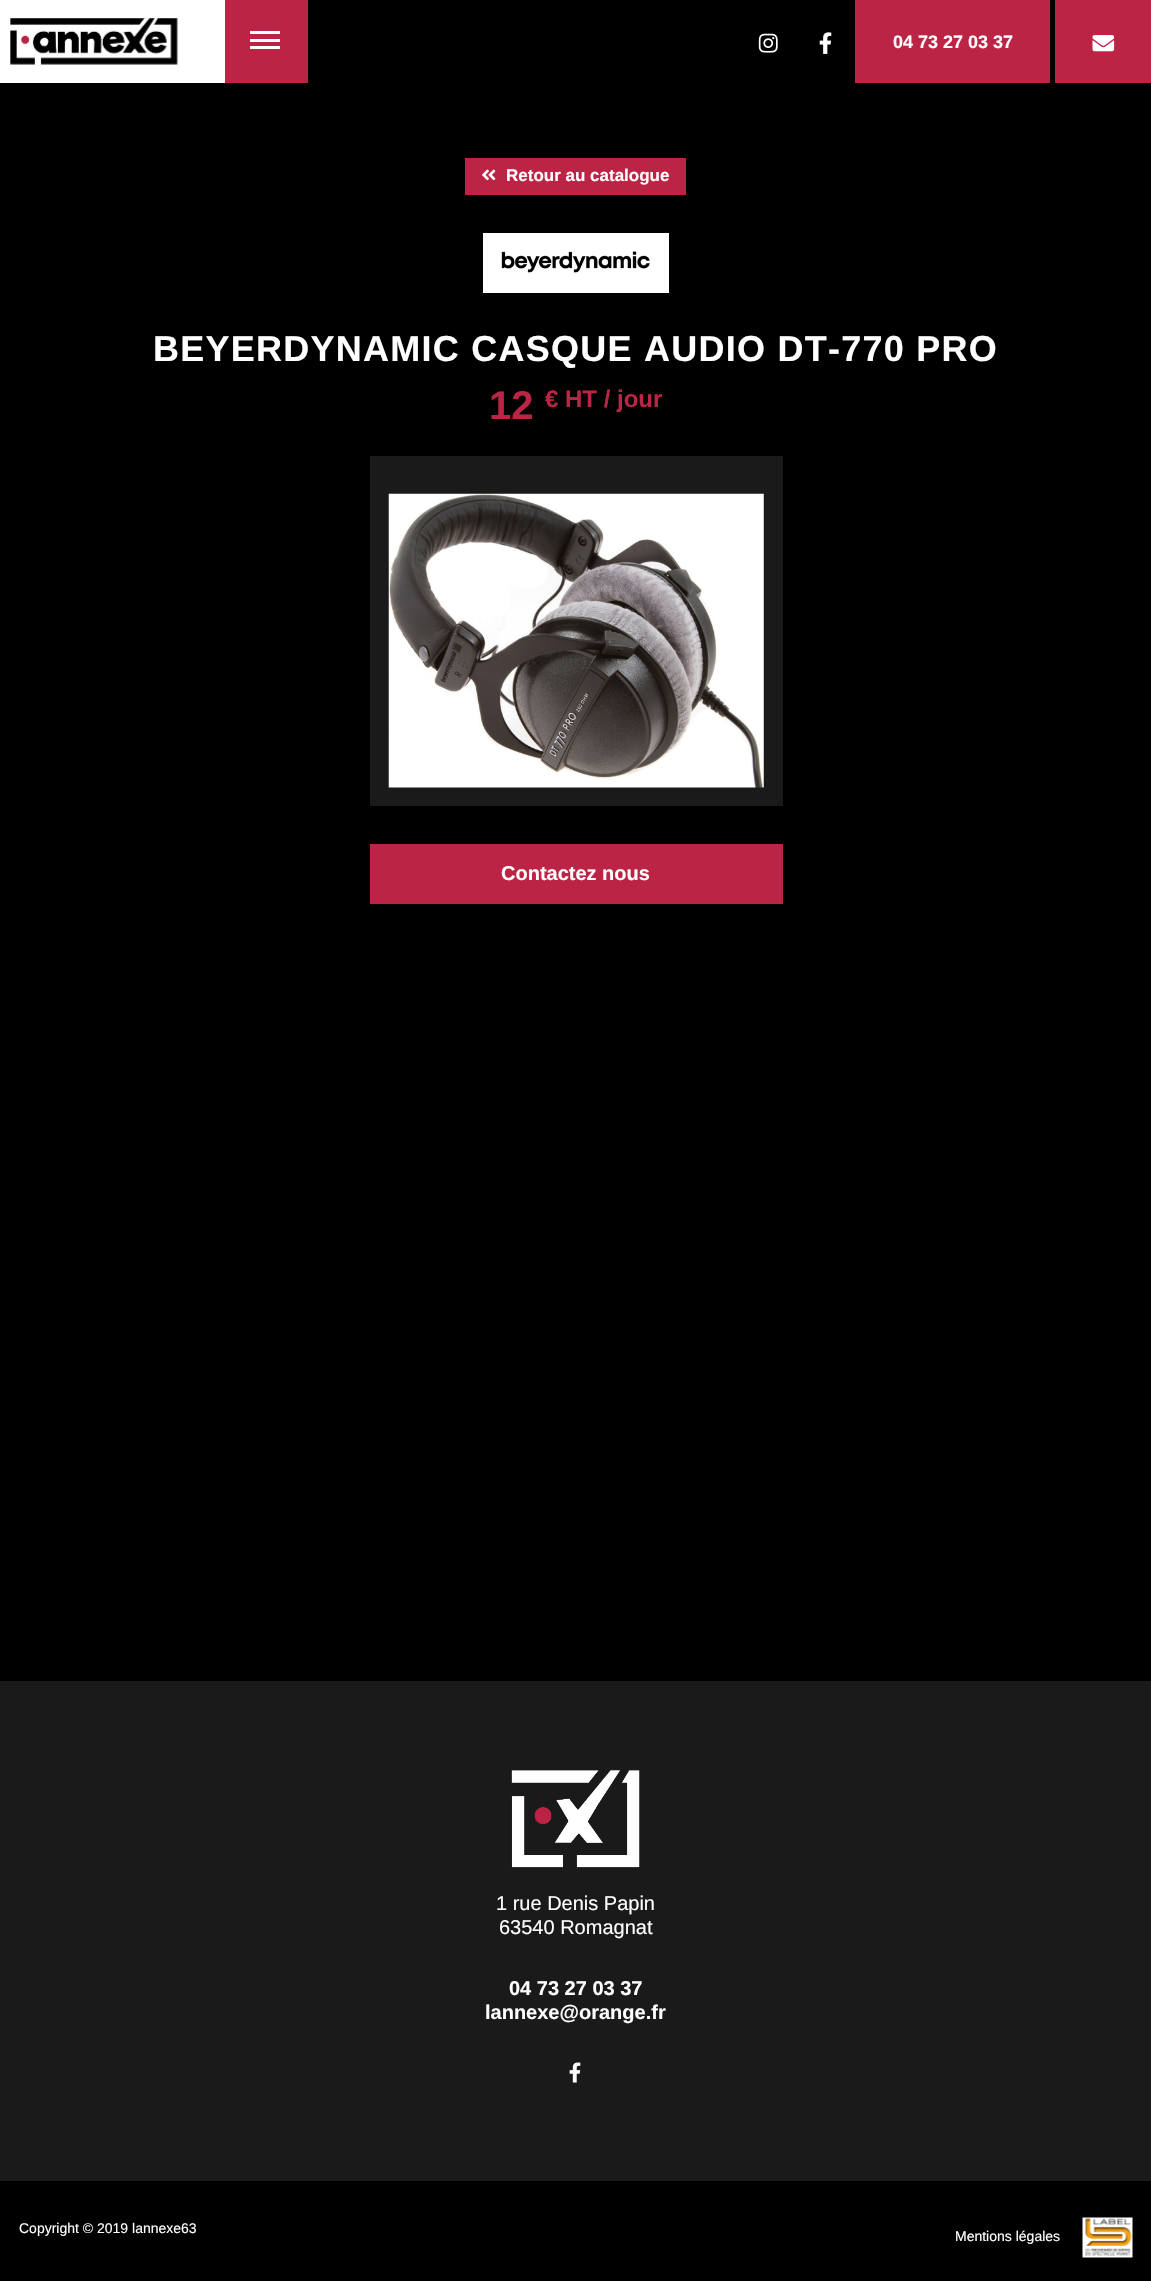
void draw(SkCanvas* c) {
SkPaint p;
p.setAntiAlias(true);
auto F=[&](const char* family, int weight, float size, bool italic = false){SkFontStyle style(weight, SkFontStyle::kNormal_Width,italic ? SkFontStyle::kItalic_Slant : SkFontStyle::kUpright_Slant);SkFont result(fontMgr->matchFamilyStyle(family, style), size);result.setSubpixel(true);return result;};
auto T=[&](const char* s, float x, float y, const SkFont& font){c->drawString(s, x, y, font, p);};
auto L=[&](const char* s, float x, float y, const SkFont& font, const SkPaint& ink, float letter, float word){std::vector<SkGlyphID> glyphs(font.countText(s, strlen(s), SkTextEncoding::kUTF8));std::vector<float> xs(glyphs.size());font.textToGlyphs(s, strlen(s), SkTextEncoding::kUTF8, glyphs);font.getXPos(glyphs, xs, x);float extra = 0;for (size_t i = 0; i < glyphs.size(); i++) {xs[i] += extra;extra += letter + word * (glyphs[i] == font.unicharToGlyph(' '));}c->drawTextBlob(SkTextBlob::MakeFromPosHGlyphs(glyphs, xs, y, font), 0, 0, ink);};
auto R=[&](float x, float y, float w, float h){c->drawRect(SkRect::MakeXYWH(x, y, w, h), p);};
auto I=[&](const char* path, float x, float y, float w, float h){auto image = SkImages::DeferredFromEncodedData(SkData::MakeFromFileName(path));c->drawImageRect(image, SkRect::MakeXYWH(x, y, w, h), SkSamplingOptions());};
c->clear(0xff000000);
p.setColor(0xffffffff);
R(0,0,225,83);
I("1.png",10,18,168,47);
p.setColor(0xffbb2445);
R(225,0,83,83);
p.setColor(0xffffffff);
R(250,46,30,3);
R(250,39,30,3);
R(250,31,30,3);
I("2.png",758,33,20,20);
I("3.png",819,32,13,22);
p.setColor(0xffbb2445);
R(855,0,195,83);
auto f1 = F("Liberation Sans",700,18);
p.setColor(0xffffffff);
T("04 73 27 03 37",893,48,f1);
p.setColor(0xffbb2445);
R(1055,0,96,83);
I("4.png",1092,35,23,17);
R(465,158,221,37);
I("5.png",482,169,14,12);
auto f2 = F("Liberation Sans",700,17);
p.setColor(0xffffffff);
T("Retour au catalogue",506,181,f2);
R(483,233,186,60);
I("6.png",501,251,149,22);
auto f3 = F("Liberation Sans",700,36);
L("BEYERDYNAMIC CASQUE AUDIO DT-770 PRO",153,361,f3,p,1.25,0);
auto f4 = F("Liberation Sans",700,40);
p.setColor(0xffbb2445);
T("12",489,419,f4);
auto f5 = F("Liberation Sans",700,24);
T("€ HT / jour",545,407,f5);
p.setColor(0xff1a1a1a);
R(370,456,413,350);
I("7.png",388,493,376,295);
p.setColor(0xffbb2445);
R(370,844,413,60);
auto f6 = F("Liberation Sans",700,20);
p.setColor(0xffffffff);
T("Contactez nous",501,880,f6);
p.setColor(0xff1a1a1a);
R(0,1681,1151,500);
I("8.png",511,1770,129,98);
auto f7 = F("Liberation Sans",400,20);
p.setColor(0xffffffff);
T("1 rue Denis Papin",496,1910,f7);
T("63540 Romagnat",499,1934,f7);
T("04 73 27 03 37",509,1995,f6);
T("lannexe@orange.fr",485,2019,f6);
I("9.png",569,2062,12,21);
auto f8 = F("Liberation Sans",400,14);
T("Copyright © 2019 lannexe63",19,2233,f8);
T("Mentions légales",955,2241,f8);
I("10.png",1082,2217,51,41);
}
